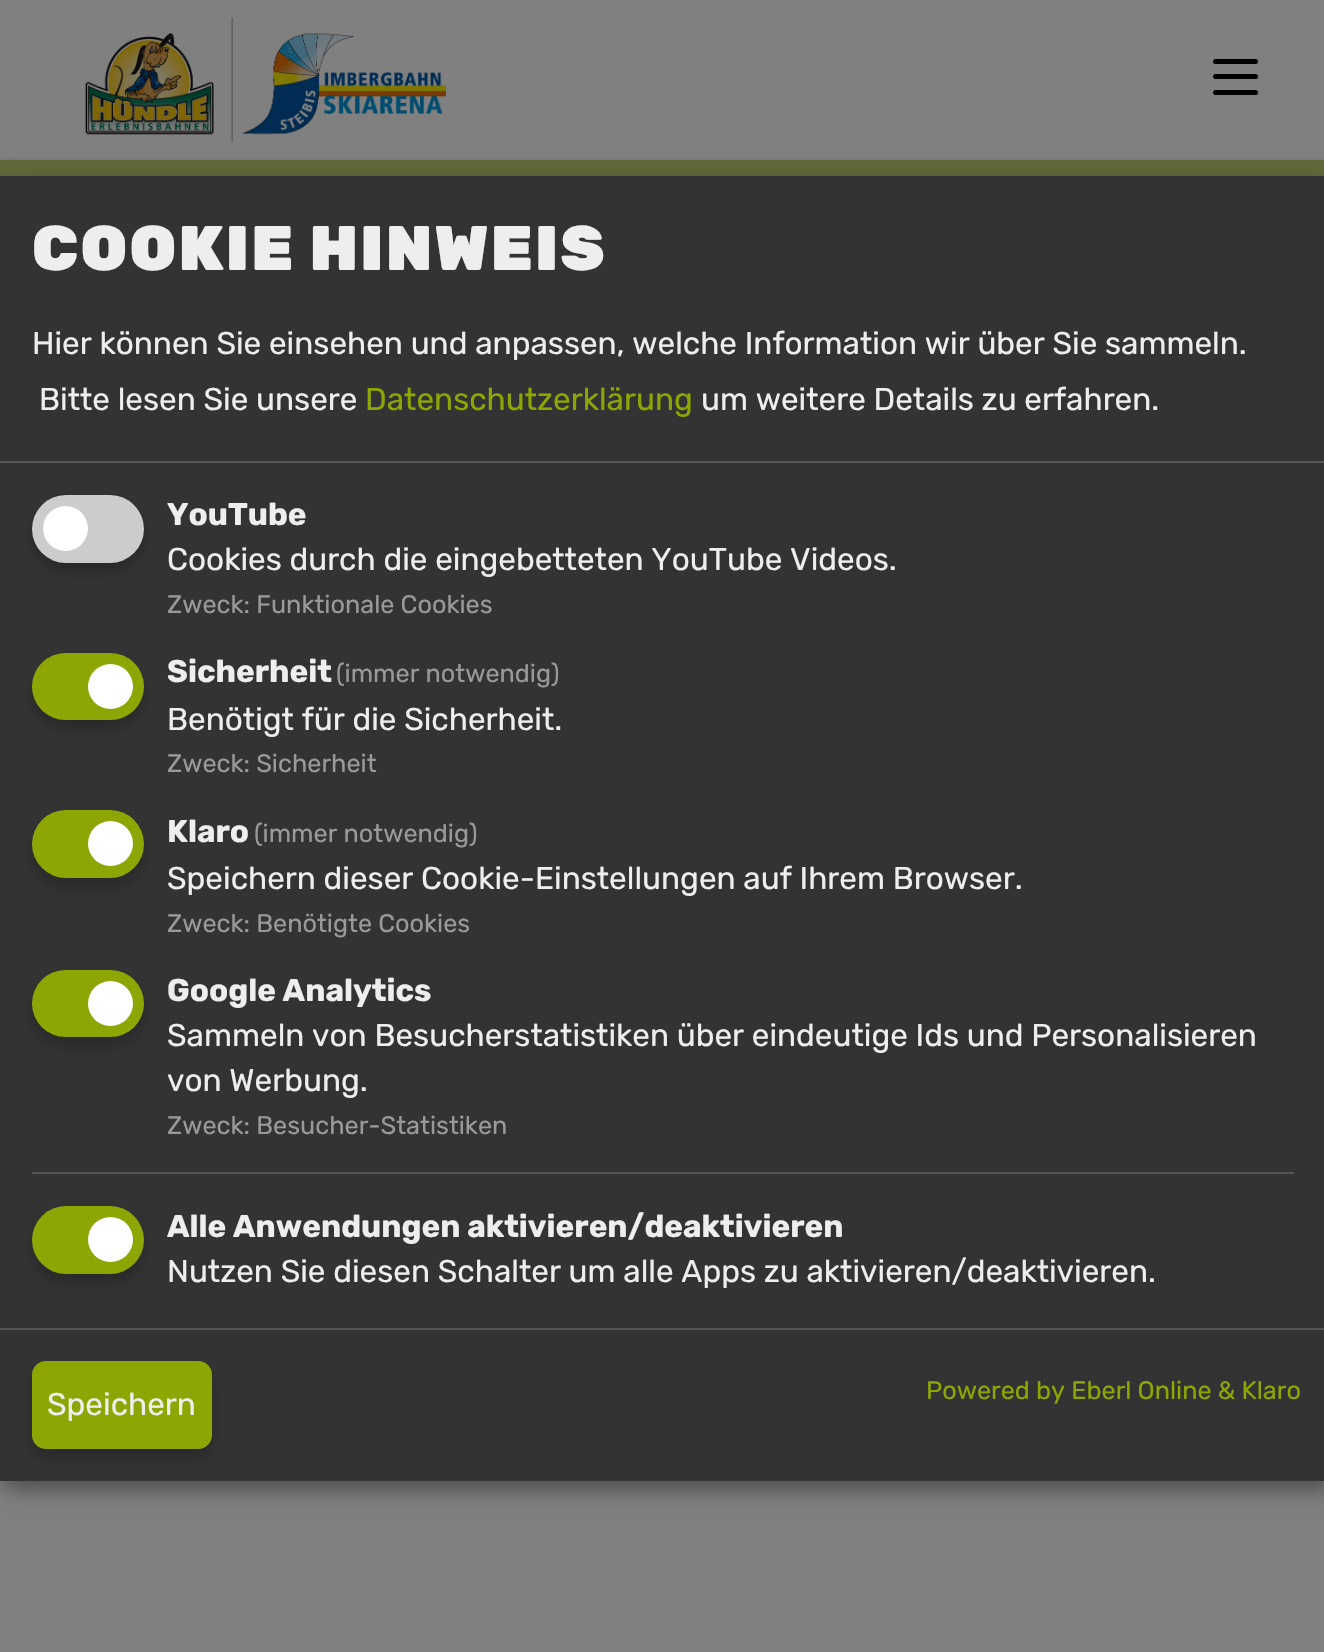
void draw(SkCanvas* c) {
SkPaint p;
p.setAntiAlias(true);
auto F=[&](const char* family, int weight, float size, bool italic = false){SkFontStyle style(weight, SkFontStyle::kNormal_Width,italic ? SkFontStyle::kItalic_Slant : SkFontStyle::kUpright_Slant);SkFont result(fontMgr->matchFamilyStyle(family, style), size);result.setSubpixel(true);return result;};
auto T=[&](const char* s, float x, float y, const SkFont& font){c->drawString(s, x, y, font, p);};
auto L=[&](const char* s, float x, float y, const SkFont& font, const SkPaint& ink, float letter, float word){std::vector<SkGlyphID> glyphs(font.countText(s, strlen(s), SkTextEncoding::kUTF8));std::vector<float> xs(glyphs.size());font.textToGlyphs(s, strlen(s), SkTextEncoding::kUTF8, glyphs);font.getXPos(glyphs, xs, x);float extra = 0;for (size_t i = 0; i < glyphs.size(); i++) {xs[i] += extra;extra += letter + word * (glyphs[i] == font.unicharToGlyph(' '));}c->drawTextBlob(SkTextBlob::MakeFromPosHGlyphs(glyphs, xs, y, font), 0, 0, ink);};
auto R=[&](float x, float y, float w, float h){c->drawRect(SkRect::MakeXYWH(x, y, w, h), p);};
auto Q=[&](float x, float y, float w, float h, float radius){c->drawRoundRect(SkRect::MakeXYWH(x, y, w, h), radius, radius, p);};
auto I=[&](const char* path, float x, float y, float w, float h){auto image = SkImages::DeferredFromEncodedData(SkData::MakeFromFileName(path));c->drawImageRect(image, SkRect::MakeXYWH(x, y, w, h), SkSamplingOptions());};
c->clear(0xff808080);
p.setColor(0xff797979);
R(0,158,1324,2);
I("1.png",85,17,361,125);
p.setColor(0xff000000);
Q(1213,74,45,5,2.5);
Q(1213,59,45,5,2.5);
Q(1213,90,45,5,2.5);
{
const SkColor colors[] = {0xff606738,0xff808080};
const float stops[] = {0,1};
const SkPoint ends[] = {{663,160}, {663,1544}};
p.setShader(SkGradientShader::MakeLinear(ends, colors, stops, 2, SkTileMode::kClamp));
p.setAlpha(255);
}
R(0,160,1324,1336);
p.setShader(nullptr);
p.setColor(0x30000000);
p.setMaskFilter(SkMaskFilter::MakeBlur(kNormal_SkBlurStyle, 11));
c->drawRect(SkRect::MakeXYWH(11,187,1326,1305),p);
p.setMaskFilter(nullptr);
p.setColor(0x33000000);
p.setMaskFilter(SkMaskFilter::MakeBlur(kNormal_SkBlurStyle, 7));
c->drawRect(SkRect::MakeXYWH(0,185,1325,1305),p);
p.setMaskFilter(nullptr);
p.setColor(0xff333333);
R(0,176,1324,1305);
p.setColor(0xff555555);
R(0,461,1324,2);
auto f1 = F("Rubik",900,63);
p.setColor(0xffeeeeee);
L("COOKIE HINWEIS",32,270,f1,p,2.25,0);
auto f2 = F("Rubik",400,31.5);
T("Hier können Sie einsehen und anpassen, welche Information wir über Sie sammeln.",32,354,f2);
T("Bitte lesen Sie unsere",39,410,f2);
p.setColor(0xff8ea604);
T("Datenschutzerklärung",365,410,f2);
p.setColor(0xffeeeeee);
T("um weitere Details zu erfahren.",701,410,f2);
p.setColor(0x33000000);
p.setMaskFilter(SkMaskFilter::MakeBlur(kNormal_SkBlurStyle, 7));
c->drawRoundRect(SkRect::MakeXYWH(32,504,112,68),34,34,p);
p.setMaskFilter(nullptr);
p.setColor(0xffcccccc);
Q(32,495,112,68,34);
p.setColor(0xffffffff);
c->drawCircle(65.5,528.5,22.5,p);
auto f3 = F("Rubik",700,31.5);
p.setColor(0xffeeeeee);
T("YouTube",167,525,f3);
T("Cookies durch die eingebetteten YouTube Videos.",167,570,f2);
auto f4 = F("Rubik",400,25.25);
p.setColor(0xff999999);
T("Zweck: Funktionale Cookies",167,613,f4);
p.setColor(0x33000000);
p.setMaskFilter(SkMaskFilter::MakeBlur(kNormal_SkBlurStyle, 7));
c->drawRoundRect(SkRect::MakeXYWH(32,662,112,67),33.5,33.5,p);
p.setMaskFilter(nullptr);
p.setColor(0xff8ea604);
Q(32,653,112,67,33.5);
p.setColor(0xffffffff);
c->drawCircle(110.5,686.5,22.5,p);
p.setColor(0xffeeeeee);
T("Sicherheit",167,682,f3);
p.setColor(0xff999999);
T("(immer notwendig)",336,682,f4);
p.setColor(0xffeeeeee);
T("Benötigt für die Sicherheit.",167,730,f2);
p.setColor(0xff999999);
T("Zweck: Sicherheit",167,772,f4);
p.setColor(0x33000000);
p.setMaskFilter(SkMaskFilter::MakeBlur(kNormal_SkBlurStyle, 7));
c->drawRoundRect(SkRect::MakeXYWH(32,819,112,68),34,34,p);
p.setMaskFilter(nullptr);
p.setColor(0xff8ea604);
Q(32,810,112,68,34);
p.setColor(0xffffffff);
c->drawCircle(110.5,843.5,22.5,p);
p.setColor(0xffeeeeee);
T("Klaro",167,842,f3);
p.setColor(0xff999999);
T("(immer notwendig)",254,842,f4);
p.setColor(0xffeeeeee);
T("Speichern dieser Cookie-Einstellungen auf Ihrem Browser.",167,889,f2);
p.setColor(0xff999999);
T("Zweck: Benötigte Cookies",167,932,f4);
p.setColor(0x33000000);
p.setMaskFilter(SkMaskFilter::MakeBlur(kNormal_SkBlurStyle, 7));
c->drawRoundRect(SkRect::MakeXYWH(32,979,112,67),33.5,33.5,p);
p.setMaskFilter(nullptr);
p.setColor(0xff8ea604);
Q(32,970,112,67,33.5);
p.setColor(0xffffffff);
c->drawCircle(110.5,1003.5,22.5,p);
p.setColor(0xffeeeeee);
T("Google Analytics",167,1001,f3);
T("Sammeln von Besucherstatistiken über eindeutige Ids und Personalisieren",167,1046,f2);
T("von Werbung.",167,1091,f2);
p.setColor(0xff999999);
T("Zweck: Besucher-Statistiken",167,1134,f4);
p.setColor(0xff555555);
R(32,1172,1262,2);
p.setColor(0x33000000);
p.setMaskFilter(SkMaskFilter::MakeBlur(kNormal_SkBlurStyle, 7));
c->drawRoundRect(SkRect::MakeXYWH(32,1215,112,68),34,34,p);
p.setMaskFilter(nullptr);
p.setColor(0xff8ea604);
Q(32,1206,112,68,34);
p.setColor(0xffffffff);
c->drawCircle(110.5,1239.5,22.5,p);
p.setColor(0xffeeeeee);
T("Alle Anwendungen aktivieren/deaktivieren",167,1237,f3);
T("Nutzen Sie diesen Schalter um alle Apps zu aktivieren/deaktivieren.",167,1282,f2);
p.setColor(0xff555555);
R(0,1328,1324,2);
p.setColor(0x33000000);
p.setMaskFilter(SkMaskFilter::MakeBlur(kNormal_SkBlurStyle, 7));
c->drawRoundRect(SkRect::MakeXYWH(32,1370,180,88),14,14,p);
p.setMaskFilter(nullptr);
p.setColor(0xff8ea604);
Q(32,1361,180,88,14);
p.setColor(0xffeeeeee);
T("Speichern",47,1415,f2);
p.setColor(0xff8ea604);
T("Powered by Eberl Online & Klaro",926,1399,f4);
}
